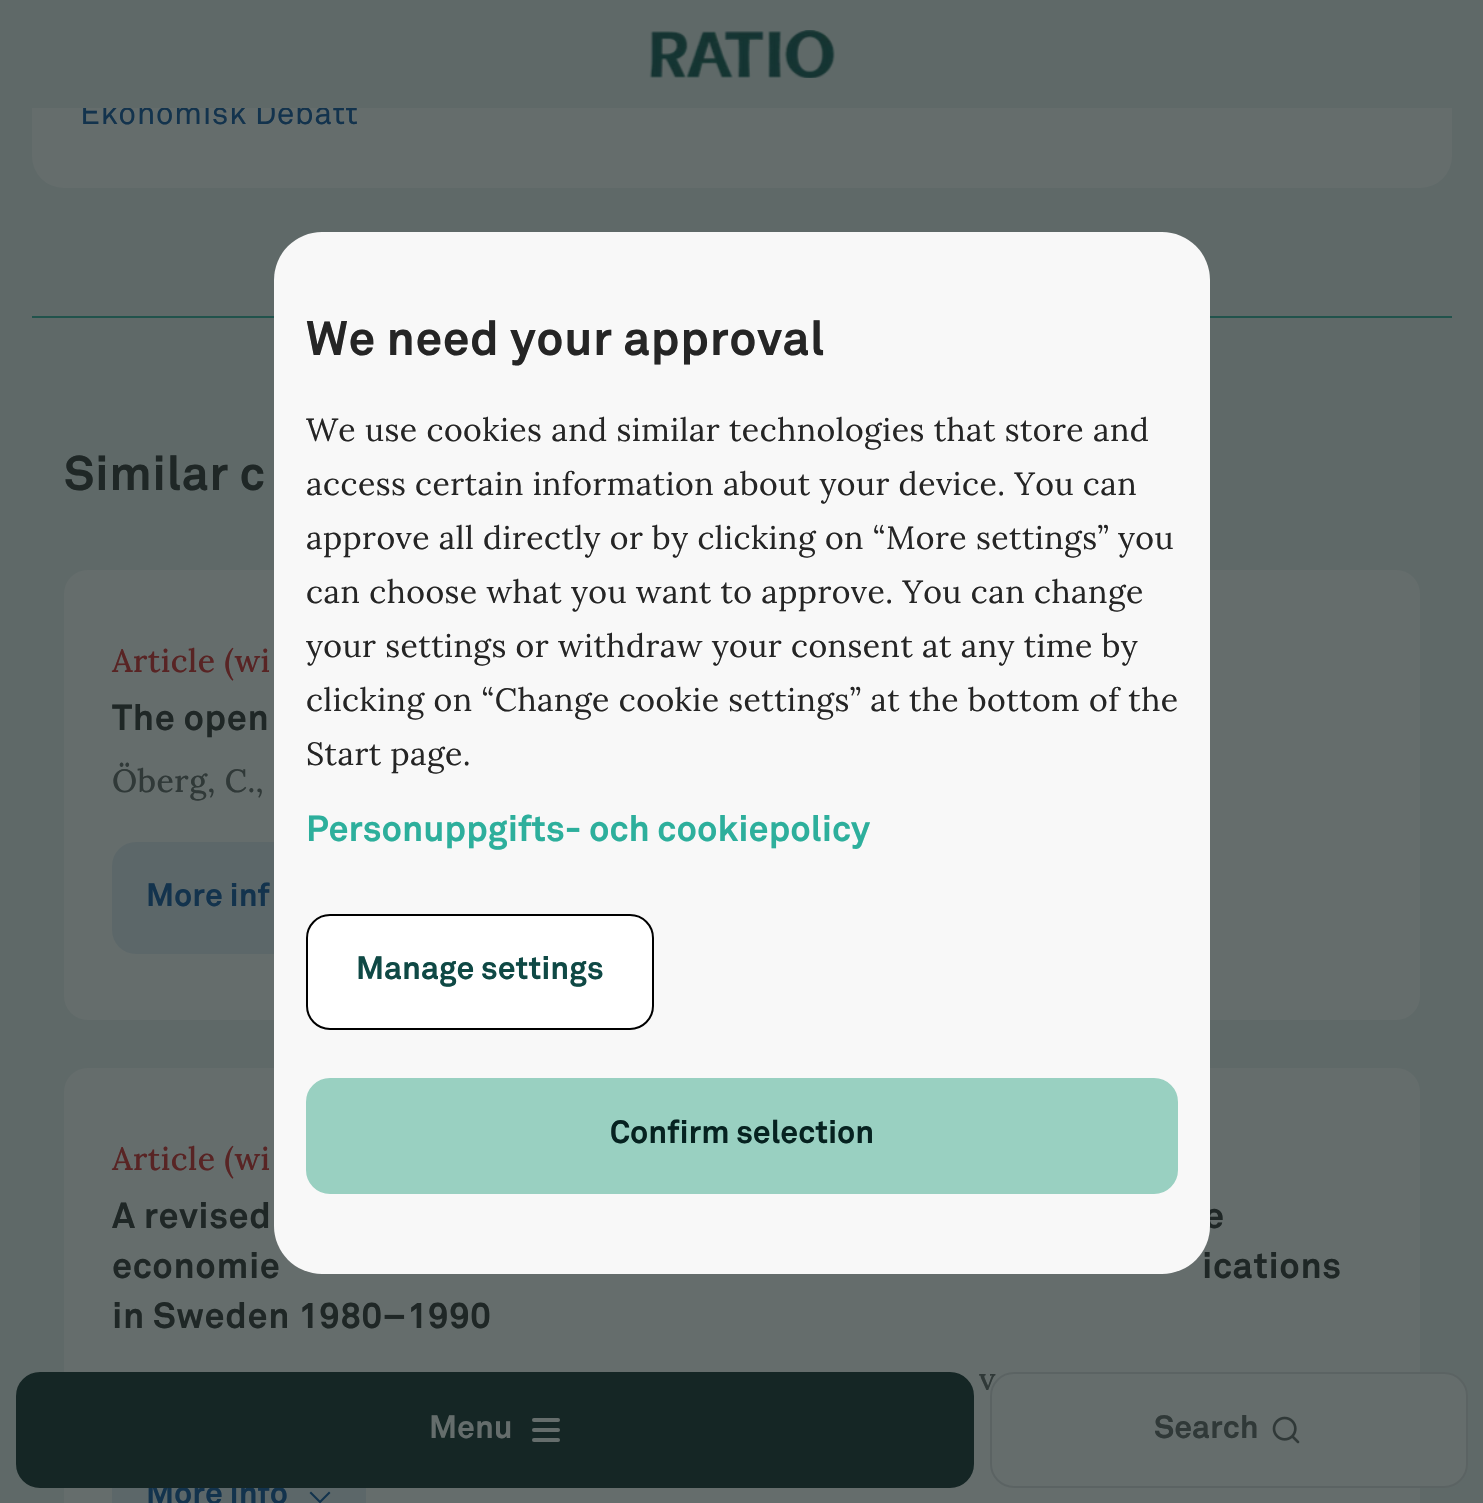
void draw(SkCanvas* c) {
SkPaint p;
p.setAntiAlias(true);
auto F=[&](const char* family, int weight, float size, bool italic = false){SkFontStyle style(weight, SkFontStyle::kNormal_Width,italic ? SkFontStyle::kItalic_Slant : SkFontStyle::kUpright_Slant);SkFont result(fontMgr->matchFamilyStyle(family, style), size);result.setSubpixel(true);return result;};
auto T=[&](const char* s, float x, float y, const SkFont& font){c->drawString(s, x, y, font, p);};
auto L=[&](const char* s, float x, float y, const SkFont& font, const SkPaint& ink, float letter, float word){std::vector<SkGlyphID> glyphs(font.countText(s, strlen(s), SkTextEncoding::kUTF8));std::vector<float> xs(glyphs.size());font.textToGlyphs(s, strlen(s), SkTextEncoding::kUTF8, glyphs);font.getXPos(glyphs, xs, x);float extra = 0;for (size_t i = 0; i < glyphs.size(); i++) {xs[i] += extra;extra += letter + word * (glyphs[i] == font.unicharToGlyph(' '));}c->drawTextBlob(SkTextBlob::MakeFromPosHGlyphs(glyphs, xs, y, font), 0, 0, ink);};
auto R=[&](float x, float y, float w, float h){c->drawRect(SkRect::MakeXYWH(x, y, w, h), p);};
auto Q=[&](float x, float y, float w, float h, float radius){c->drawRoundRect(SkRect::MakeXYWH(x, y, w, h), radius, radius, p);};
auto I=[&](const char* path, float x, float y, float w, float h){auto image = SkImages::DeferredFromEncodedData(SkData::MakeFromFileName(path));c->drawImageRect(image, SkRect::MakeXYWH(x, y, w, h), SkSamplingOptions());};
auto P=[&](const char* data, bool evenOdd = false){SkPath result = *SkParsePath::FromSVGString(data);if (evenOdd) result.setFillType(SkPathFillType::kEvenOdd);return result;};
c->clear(0xff5f6968);
p.setColor(0xff656d6c);
Q(32,-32,1420,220,32);
auto f1 = F("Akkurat",400,32);
p.setColor(0xff13334d);
L("Ekonomisk Debatt",80,124,f1,p,.45,0);
p.setColor(0xff5f6968);
R(32,0,1420,108);
I("1.png",649,30,186,48);
p.setColor(0xff21534c);
R(32,316,1420,2);
auto f2 = F("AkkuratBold",700,48);
p.setColor(0xff1f2726);
L("Similar c",64,490,f2,p,.6,0);
p.setColor(0xff656d6c);
Q(64,570,1356,450,24);
auto f3 = F("Lora",500,32);
p.setColor(0xff582424);
L("Article (wi",112,672,f3,p,.45,0);
auto f4 = F("AkkuratBold",700,36);
p.setColor(0xff1f2726);
L("The open",112,730,f4,p,.6,0);
p.setColor(0xff303938);
L("Öberg, C.,",112,792,f3,p,.45,0);
p.setColor(0xff5c6769);
Q(112,842,254,112,24);
auto f5 = F("AkkuratBold",700,32);
p.setColor(0xff13334d);
T("More inf",146,906,f5);
p.setColor(0xff656d6c);
Q(64,1068,1356,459,24);
p.setColor(0xff582424);
L("Article (wi",112,1170,f3,p,.45,0);
p.setColor(0xff1f2726);
L("A revised",112,1228,f4,p,.6,0);
L("e",1204,1228,f4,p,.6,0);
L("economie",112,1278,f4,p,.6,0);
L("ications",1202,1278,f4,p,.6,0);
L("in Sweden 1980–1990",112,1328,f4,p,.6,0);
p.setColor(0xff303938);
L("v",979,1390,f3,p,.45,0);
p.setColor(0xff5c6769);
R(114,1488,250,15);
p.setStroke(true);
p.setStrokeWidth(2);
c->drawRect(SkRect::MakeXYWH(113,1441,252,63),p);
p.setStroke(false);
p.setColor(0xff13334d);
T("More info",146,1504,f5);
c->drawPath(P("M320 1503.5l10.5-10.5l-1.5-1.5l-9 9l-9-9l-1.5 1.5z"),p);
p.setColor(0xfff8f8f8);
Q(274,232,936,1042,48);
p.setColor(0xff252525);
L("We need your approval",306,355,f2,p,.6,0);
auto f6 = F("Lora",400,32);
L("We use cookies and similar technologies that store and",306,441,f6,p,.45,0);
L("access certain information about your device. You can",306,495,f6,p,.45,0);
L("approve all directly or by clicking on “More settings” you",306,549,f6,p,.45,0);
L("can choose what you want to approve. You can change",306,603,f6,p,.45,0);
L("your settings or withdraw your consent at any time by",306,657,f6,p,.45,0);
L("clicking on “Change cookie settings” at the bottom of the",306,711,f6,p,.45,0);
L("Start page.",306,765,f6,p,.45,0);
p.setColor(0xff2daf9c);
T("Personuppgifts- och cookiepolicy",306,841,f4);
p.setColor(0xffffffff);
c->drawRoundRect(SkRect::MakeXYWH(307,915,346,114),23,23,p);
p.setStroke(true);
p.setColor(0xff000000);
c->drawRoundRect(SkRect::MakeXYWH(307,915,346,114),23,23,p);
p.setStroke(false);
p.setColor(0xff0f4945);
T("Manage settings",356,979,f5);
p.setColor(0xff99d0c1);
c->drawRoundRect(SkRect::MakeXYWH(307,1079,870,114),23,23,p);
p.setStroke(true);
c->drawRoundRect(SkRect::MakeXYWH(307,1079,870,114),23,23,p);
p.setStroke(false);
p.setColor(0xff062220);
T("Confirm selection",610,1143,f5);
p.setColor(0xff152625);
c->drawRoundRect(SkRect::MakeXYWH(17,1373,956,114),23,23,p);
p.setStroke(true);
c->drawRoundRect(SkRect::MakeXYWH(17,1373,956,114),23,23,p);
p.setStroke(false);
p.setColor(0xff656d6c);
T("Menu",429,1438,f5);
Q(532,1418,28,4,2);
Q(532,1428,28,4,2);
Q(532,1438,28,4,2);
c->drawRoundRect(SkRect::MakeXYWH(991,1373,476,114),23,23,p);
p.setStroke(true);
p.setColor(0xff5b6363);
c->drawRoundRect(SkRect::MakeXYWH(991,1373,476,114),23,23,p);
p.setStroke(false);
p.setColor(0xff303938);
T("Search",1154,1438,f5);
I("2.png",1272,1416,28,28);
}
